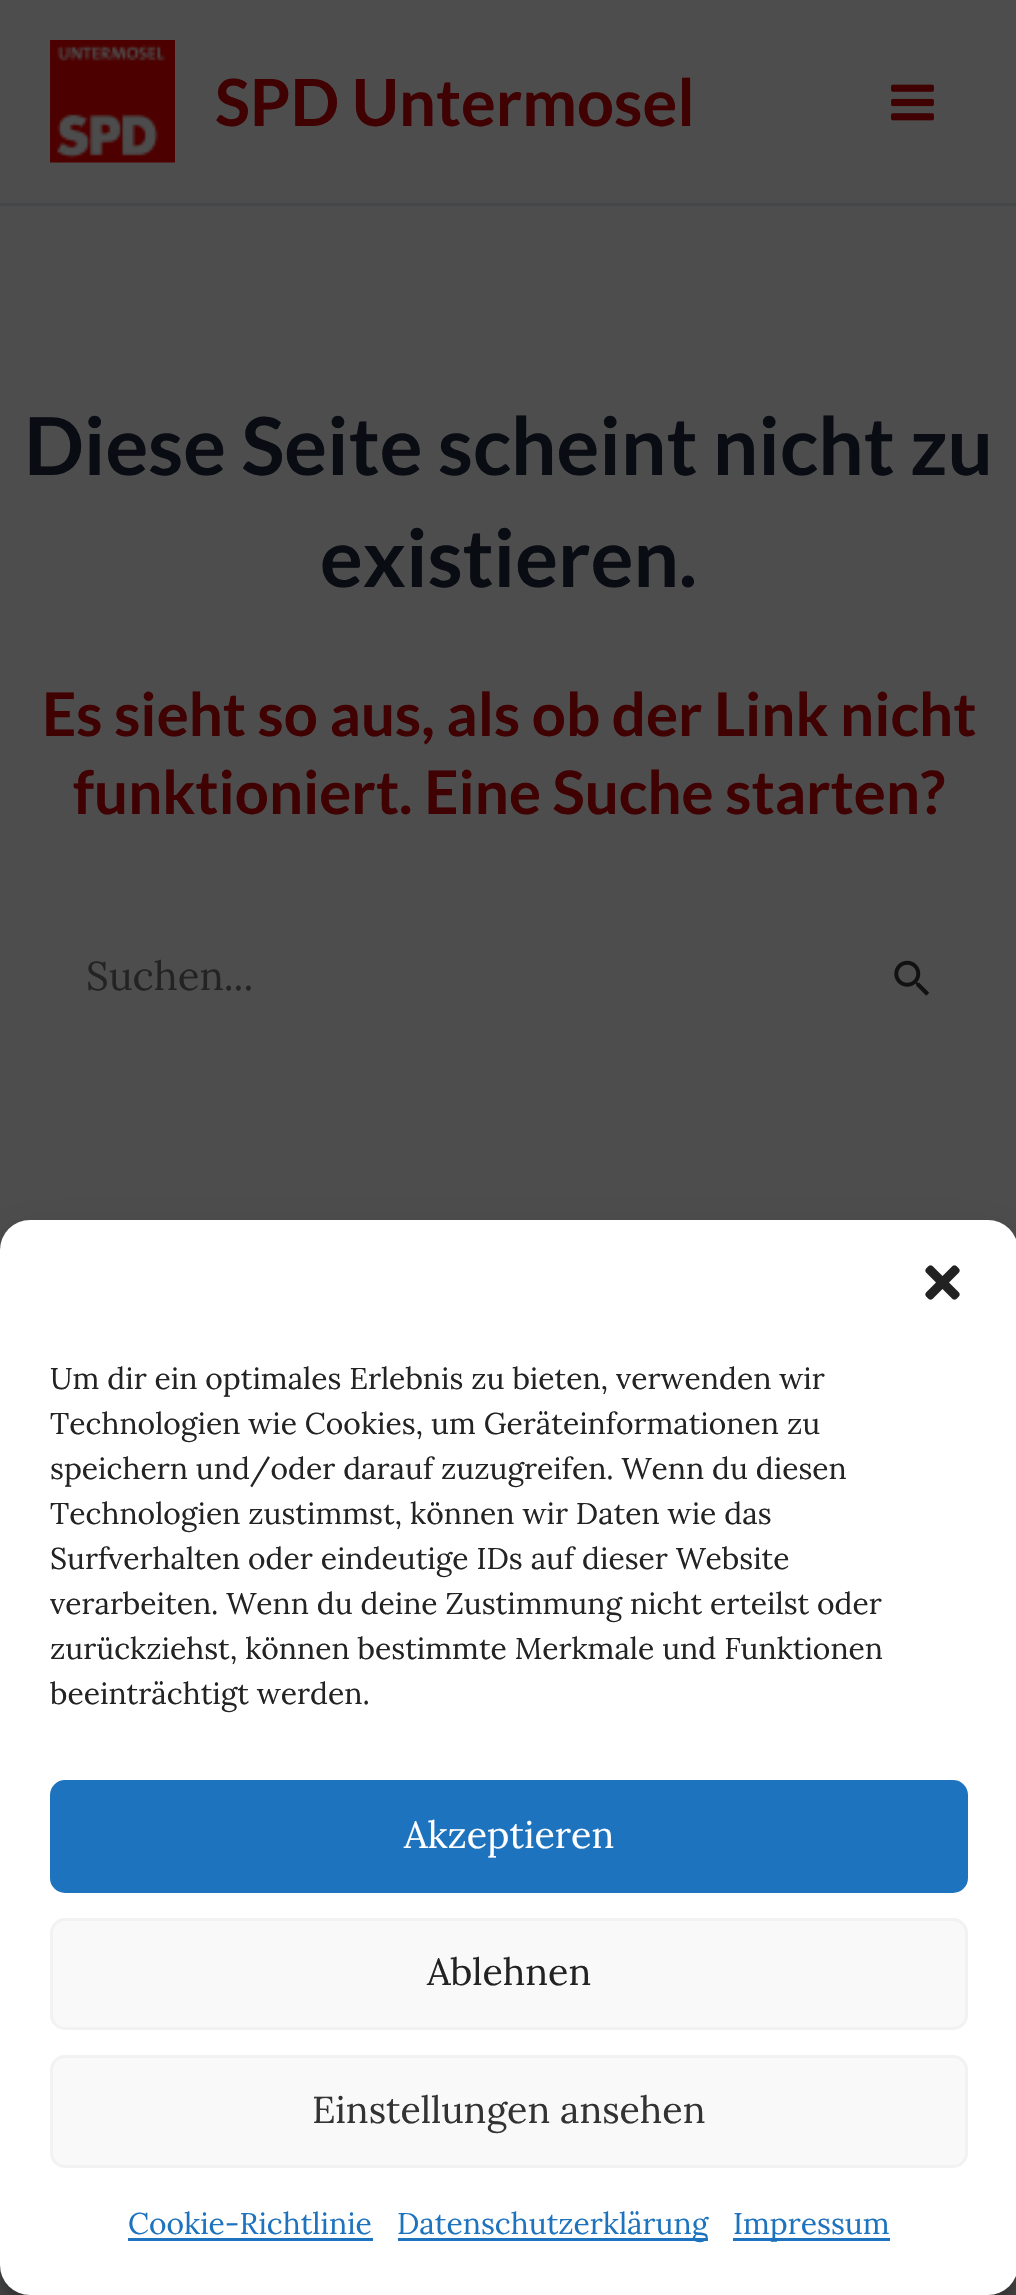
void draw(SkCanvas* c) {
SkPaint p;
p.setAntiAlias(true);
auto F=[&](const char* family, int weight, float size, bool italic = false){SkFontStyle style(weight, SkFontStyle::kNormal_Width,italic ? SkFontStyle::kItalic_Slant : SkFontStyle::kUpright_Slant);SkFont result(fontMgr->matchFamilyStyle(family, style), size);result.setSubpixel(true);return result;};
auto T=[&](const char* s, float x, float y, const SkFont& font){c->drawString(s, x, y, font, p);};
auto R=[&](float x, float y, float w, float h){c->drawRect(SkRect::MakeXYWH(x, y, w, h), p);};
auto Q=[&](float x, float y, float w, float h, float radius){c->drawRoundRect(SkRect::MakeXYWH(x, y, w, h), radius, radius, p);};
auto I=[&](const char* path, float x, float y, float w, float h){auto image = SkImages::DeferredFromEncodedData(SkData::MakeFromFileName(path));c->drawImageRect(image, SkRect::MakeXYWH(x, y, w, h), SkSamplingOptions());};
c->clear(0xff4d4d4d);
p.setColor(0xff444648);
R(0,203,1016,3);
I("1.png",50,40,125,123);
auto f1 = F("Lato",700,65);
p.setColor(0xff3f0102);
T("SPD Untermosel",215,126,f1);
I("2.png",891,84,43,37);
auto f2 = F("Lato",700,80);
p.setColor(0xff090c12);
T("Diese Seite scheint nicht zu",24,475,f2);
T("existieren.",320,587,f2);
auto f3 = F("Lato",700,60);
p.setColor(0xff3f0102);
T("Es sieht so aus, als ob der Link nicht",42,736,f3);
T("funktioniert. Eine Suche starten?",73,814,f3);
auto f4 = F("Lora",400,40);
p.setColor(0xff232323);
T("Suchen...",86,990,f4);
I("3.png",894,960,36,36);
p.setColor(0x3b000000);
p.setMaskFilter(SkMaskFilter::MakeBlur(kNormal_SkBlurStyle, 7.5));
c->drawRoundRect(SkRect::MakeXYWH(0,1235,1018,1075),30,30,p);
p.setMaskFilter(nullptr);
p.setColor(0x30000000);
p.setMaskFilter(SkMaskFilter::MakeBlur(kNormal_SkBlurStyle, 25));
c->drawRoundRect(SkRect::MakeXYWH(0,1245,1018,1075),30,30,p);
p.setMaskFilter(nullptr);
p.setColor(0xffffffff);
Q(0,1220,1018,1075,30);
I("4.png",925,1265,35,35);
auto f5 = F("Lora",400,30);
p.setColor(0xff232323);
T("Um dir ein optimales Erlebnis zu bieten, verwenden wir",50,1389,f5);
T("Technologien wie Cookies, um Geräteinformationen zu",50,1434,f5);
T("speichern und/oder darauf zuzugreifen. Wenn du diesen",50,1479,f5);
T("Technologien zustimmst, können wir Daten wie das",50,1524,f5);
T("Surfverhalten oder eindeutige IDs auf dieser Website",50,1569,f5);
T("verarbeiten. Wenn du deine Zustimmung nicht erteilst oder",50,1614,f5);
T("zurückziehst, können bestimmte Merkmale und Funktionen",50,1659,f5);
T("beeinträchtigt werden.",50,1704,f5);
p.setColor(0xff1e73be);
c->drawRoundRect(SkRect::MakeXYWH(51.5,1781.5,915,110),13.5,13.5,p);
p.setStroke(true);
p.setStrokeWidth(3);
c->drawRoundRect(SkRect::MakeXYWH(51.5,1781.5,915,110),13.5,13.5,p);
auto f6 = F("Lora",400,37.5);
p.setStroke(false);
p.setColor(0xffffffff);
T("Akzeptieren",404,1848,f6);
p.setColor(0xfff9f9f9);
c->drawRoundRect(SkRect::MakeXYWH(51.5,1919.5,915,109),13.5,13.5,p);
p.setStroke(true);
p.setColor(0xfff2f2f2);
c->drawRoundRect(SkRect::MakeXYWH(51.5,1919.5,915,109),13.5,13.5,p);
p.setStroke(false);
p.setColor(0xff232323);
T("Ablehnen",427,1985,f6);
p.setColor(0xfff9f9f9);
c->drawRoundRect(SkRect::MakeXYWH(51.5,2056.5,915,110),13.5,13.5,p);
p.setStroke(true);
p.setColor(0xfff2f2f2);
c->drawRoundRect(SkRect::MakeXYWH(51.5,2056.5,915,110),13.5,13.5,p);
p.setStroke(false);
p.setColor(0xff333333);
T("Einstellungen ansehen",312,2123,f6);
p.setColor(0xff1e73be);
T("Cookie-Richtlinie",128,2234,f5);
R(128,2238,245,3);
R(398,2238,310,3);
T("Datenschutzerklärung",397,2234,f5);
R(733,2238,157,3);
T("Impressum",733,2234,f5);
}
